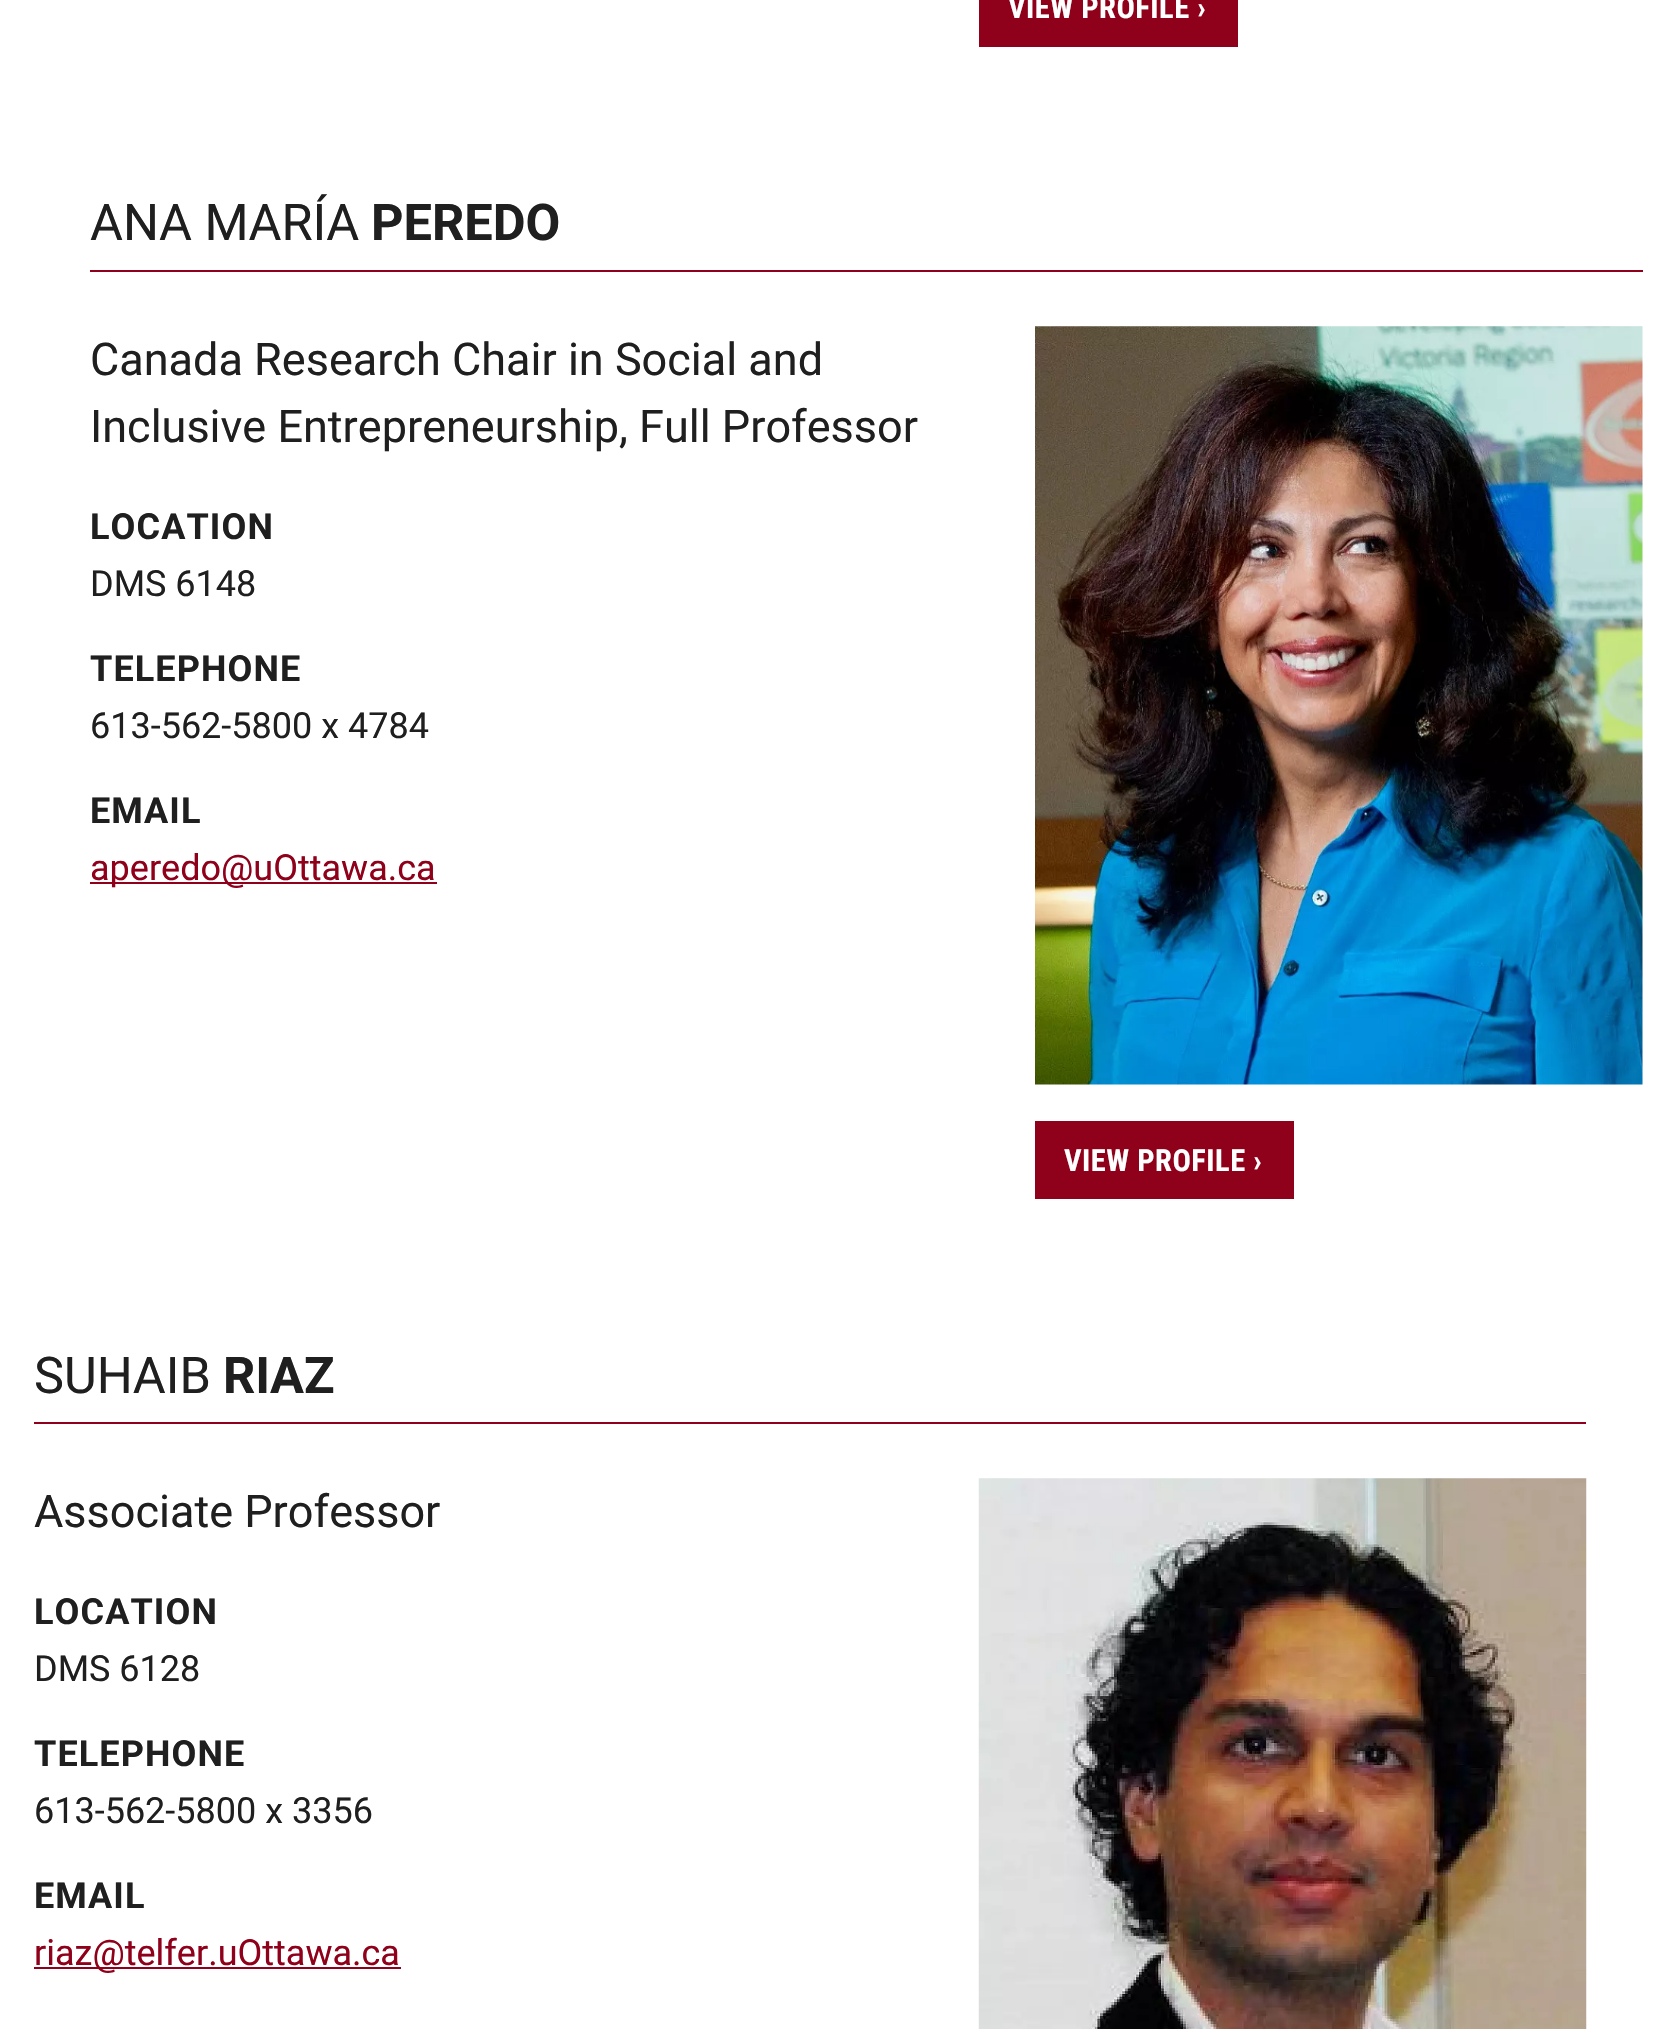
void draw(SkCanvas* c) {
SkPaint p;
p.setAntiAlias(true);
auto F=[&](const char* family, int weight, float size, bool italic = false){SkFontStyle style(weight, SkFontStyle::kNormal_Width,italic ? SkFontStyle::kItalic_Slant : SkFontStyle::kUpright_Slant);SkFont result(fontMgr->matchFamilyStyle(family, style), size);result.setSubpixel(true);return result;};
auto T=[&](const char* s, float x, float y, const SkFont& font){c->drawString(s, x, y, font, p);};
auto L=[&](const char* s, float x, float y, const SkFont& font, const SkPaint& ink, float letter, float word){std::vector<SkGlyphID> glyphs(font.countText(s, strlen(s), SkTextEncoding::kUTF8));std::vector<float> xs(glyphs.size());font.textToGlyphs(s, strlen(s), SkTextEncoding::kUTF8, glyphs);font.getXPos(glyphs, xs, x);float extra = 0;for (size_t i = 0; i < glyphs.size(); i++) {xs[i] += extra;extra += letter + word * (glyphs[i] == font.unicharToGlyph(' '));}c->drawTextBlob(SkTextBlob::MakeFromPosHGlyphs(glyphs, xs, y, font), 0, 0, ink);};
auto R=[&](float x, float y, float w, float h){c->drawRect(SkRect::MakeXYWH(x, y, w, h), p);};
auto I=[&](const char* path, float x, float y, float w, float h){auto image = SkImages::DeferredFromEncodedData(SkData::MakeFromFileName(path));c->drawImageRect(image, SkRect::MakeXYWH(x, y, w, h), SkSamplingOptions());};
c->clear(0xffffffff);
p.setColor(0xff8f001a);
R(979,0,259,47);
auto f1 = F("Roboto Condensed",700,30.5);
p.setColor(0xffffffff);
L("VIEW PROFILE ›",1008,18,f1,p,.5,0);
p.setColor(0xff8f001a);
R(90,270,1553,2);
auto f2 = F("Roboto",400,50.5);
p.setColor(0xff1f1f1f);
T("ANA MARÍA",90,240,f2);
auto f3 = F("Roboto",700,50.5);
T("PEREDO",371,240,f3);
auto f4 = F("Roboto",400,45);
T("Canada Research Chair in Social and",90,375,f4);
T("Inclusive Entrepreneurship, Full Professor",90,442,f4);
auto f5 = F("Roboto",700,36);
L("LOCATION",90,539,f5,p,1.1,0);
auto f6 = F("Roboto",400,36);
T("DMS 6148",90,596,f6);
L("TELEPHONE",90,681,f5,p,1.1,0);
T("613-562-5800 x 4784",90,738,f6);
L("EMAIL",90,823,f5,p,1.1,0);
p.setColor(0xff8f001a);
R(90,882,347,2);
T("aperedo@uOttawa.ca",90,880,f6);
I("1.png",1035,326,608,759);
R(1035,1121,259,78);
p.setColor(0xffffffff);
L("VIEW PROFILE ›",1064,1171,f1,p,.5,0);
p.setColor(0xff8f001a);
R(34,1422,1552,2);
p.setColor(0xff1f1f1f);
T("SUHAIB",34,1393,f2);
T("RIAZ",223,1393,f3);
T("Associate Professor",34,1527,f4);
L("LOCATION",34,1624,f5,p,1.1,0);
T("DMS 6128",34,1681,f6);
L("TELEPHONE",34,1766,f5,p,1.1,0);
T("613-562-5800 x 3356",34,1823,f6);
L("EMAIL",34,1908,f5,p,1.1,0);
p.setColor(0xff8f001a);
R(34,1967,367,2);
T("riaz@telfer.uOttawa.ca",34,1965,f6);
I("2.png",978,1478,609,551);
}
